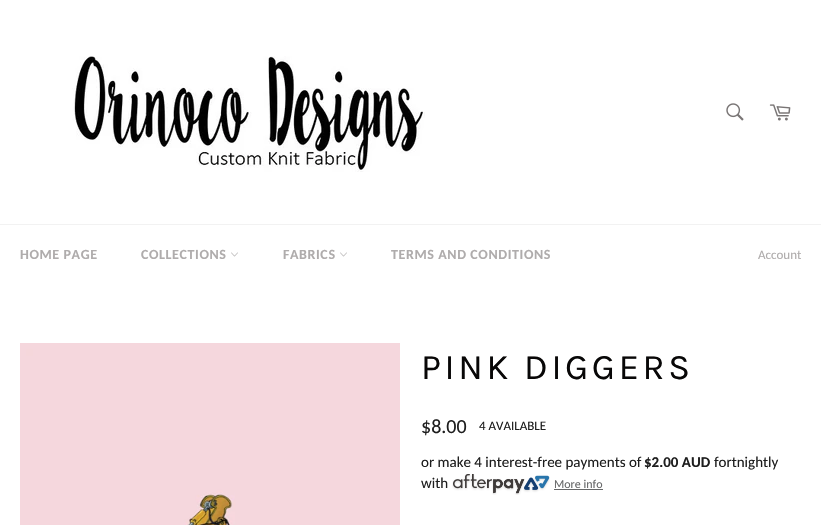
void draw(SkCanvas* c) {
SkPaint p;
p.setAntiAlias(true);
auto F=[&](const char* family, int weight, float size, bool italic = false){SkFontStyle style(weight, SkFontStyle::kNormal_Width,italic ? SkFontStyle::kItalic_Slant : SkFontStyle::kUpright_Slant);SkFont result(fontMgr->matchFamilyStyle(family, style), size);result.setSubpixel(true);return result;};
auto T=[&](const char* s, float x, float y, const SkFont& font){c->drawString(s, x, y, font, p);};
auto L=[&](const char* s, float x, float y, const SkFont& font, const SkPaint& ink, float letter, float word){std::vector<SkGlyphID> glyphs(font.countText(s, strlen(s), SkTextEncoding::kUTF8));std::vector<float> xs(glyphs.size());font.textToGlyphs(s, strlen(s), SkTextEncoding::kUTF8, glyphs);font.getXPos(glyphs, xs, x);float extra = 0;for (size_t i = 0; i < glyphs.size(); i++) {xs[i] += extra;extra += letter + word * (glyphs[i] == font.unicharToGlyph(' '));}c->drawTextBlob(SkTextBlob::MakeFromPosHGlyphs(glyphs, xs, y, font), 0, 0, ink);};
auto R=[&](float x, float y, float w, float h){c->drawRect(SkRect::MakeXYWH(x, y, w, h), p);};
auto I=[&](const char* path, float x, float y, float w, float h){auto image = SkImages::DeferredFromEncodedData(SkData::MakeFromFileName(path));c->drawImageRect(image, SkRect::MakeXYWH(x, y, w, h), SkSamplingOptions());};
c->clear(0xffffffff);
I("1.png",72,56,353,116);
I("2.png",726,103,18,18);
I("3.png",769,104,22,17);
p.setColor(0xfff2f2f2);
R(0,224,821,1);
auto f1 = F("Carlito",700,14);
p.setColor(0xffafacac);
L("HOME PAGE",20,259,f1,p,.6,0);
L("COLLECTIONS",141,259,f1,p,.6,0);
I("4.png",231,252,7,5);
L("FABRICS",283,259,f1,p,.6,0);
I("4.png",340,252,7,5);
L("TERMS AND CONDITIONS",391,259,f1,p,.6,0);
auto f2 = F("Carlito",400,13);
T("Account",758,259,f2);
I("5.png",20,343,380,182);
auto f3 = F("Karla",400,36);
p.setColor(0xff080707);
L("PINK DIGGERS",421,379,f3,p,3.6,0);
auto f4 = F("Carlito",400,20);
p.setColor(0xff1e1e1e);
T("$8.00",421,433,f4);
T("4 AVAILABLE",479,430,f2);
auto f5 = F("Carlito",400,15);
T("or make 4 interest-free payments of",421,467,f5);
auto f6 = F("Carlito",700,15);
T("$2.00 AUD",644,467,f6);
T("fortnightly",714,467,f5);
T("with",421,488,f5);
I("6.png",452,474,98,21);
auto f7 = F("Carlito",400,12);
p.setColor(0xff676869);
T("More info",554,488,f7);
R(554,489,49,1);
}
